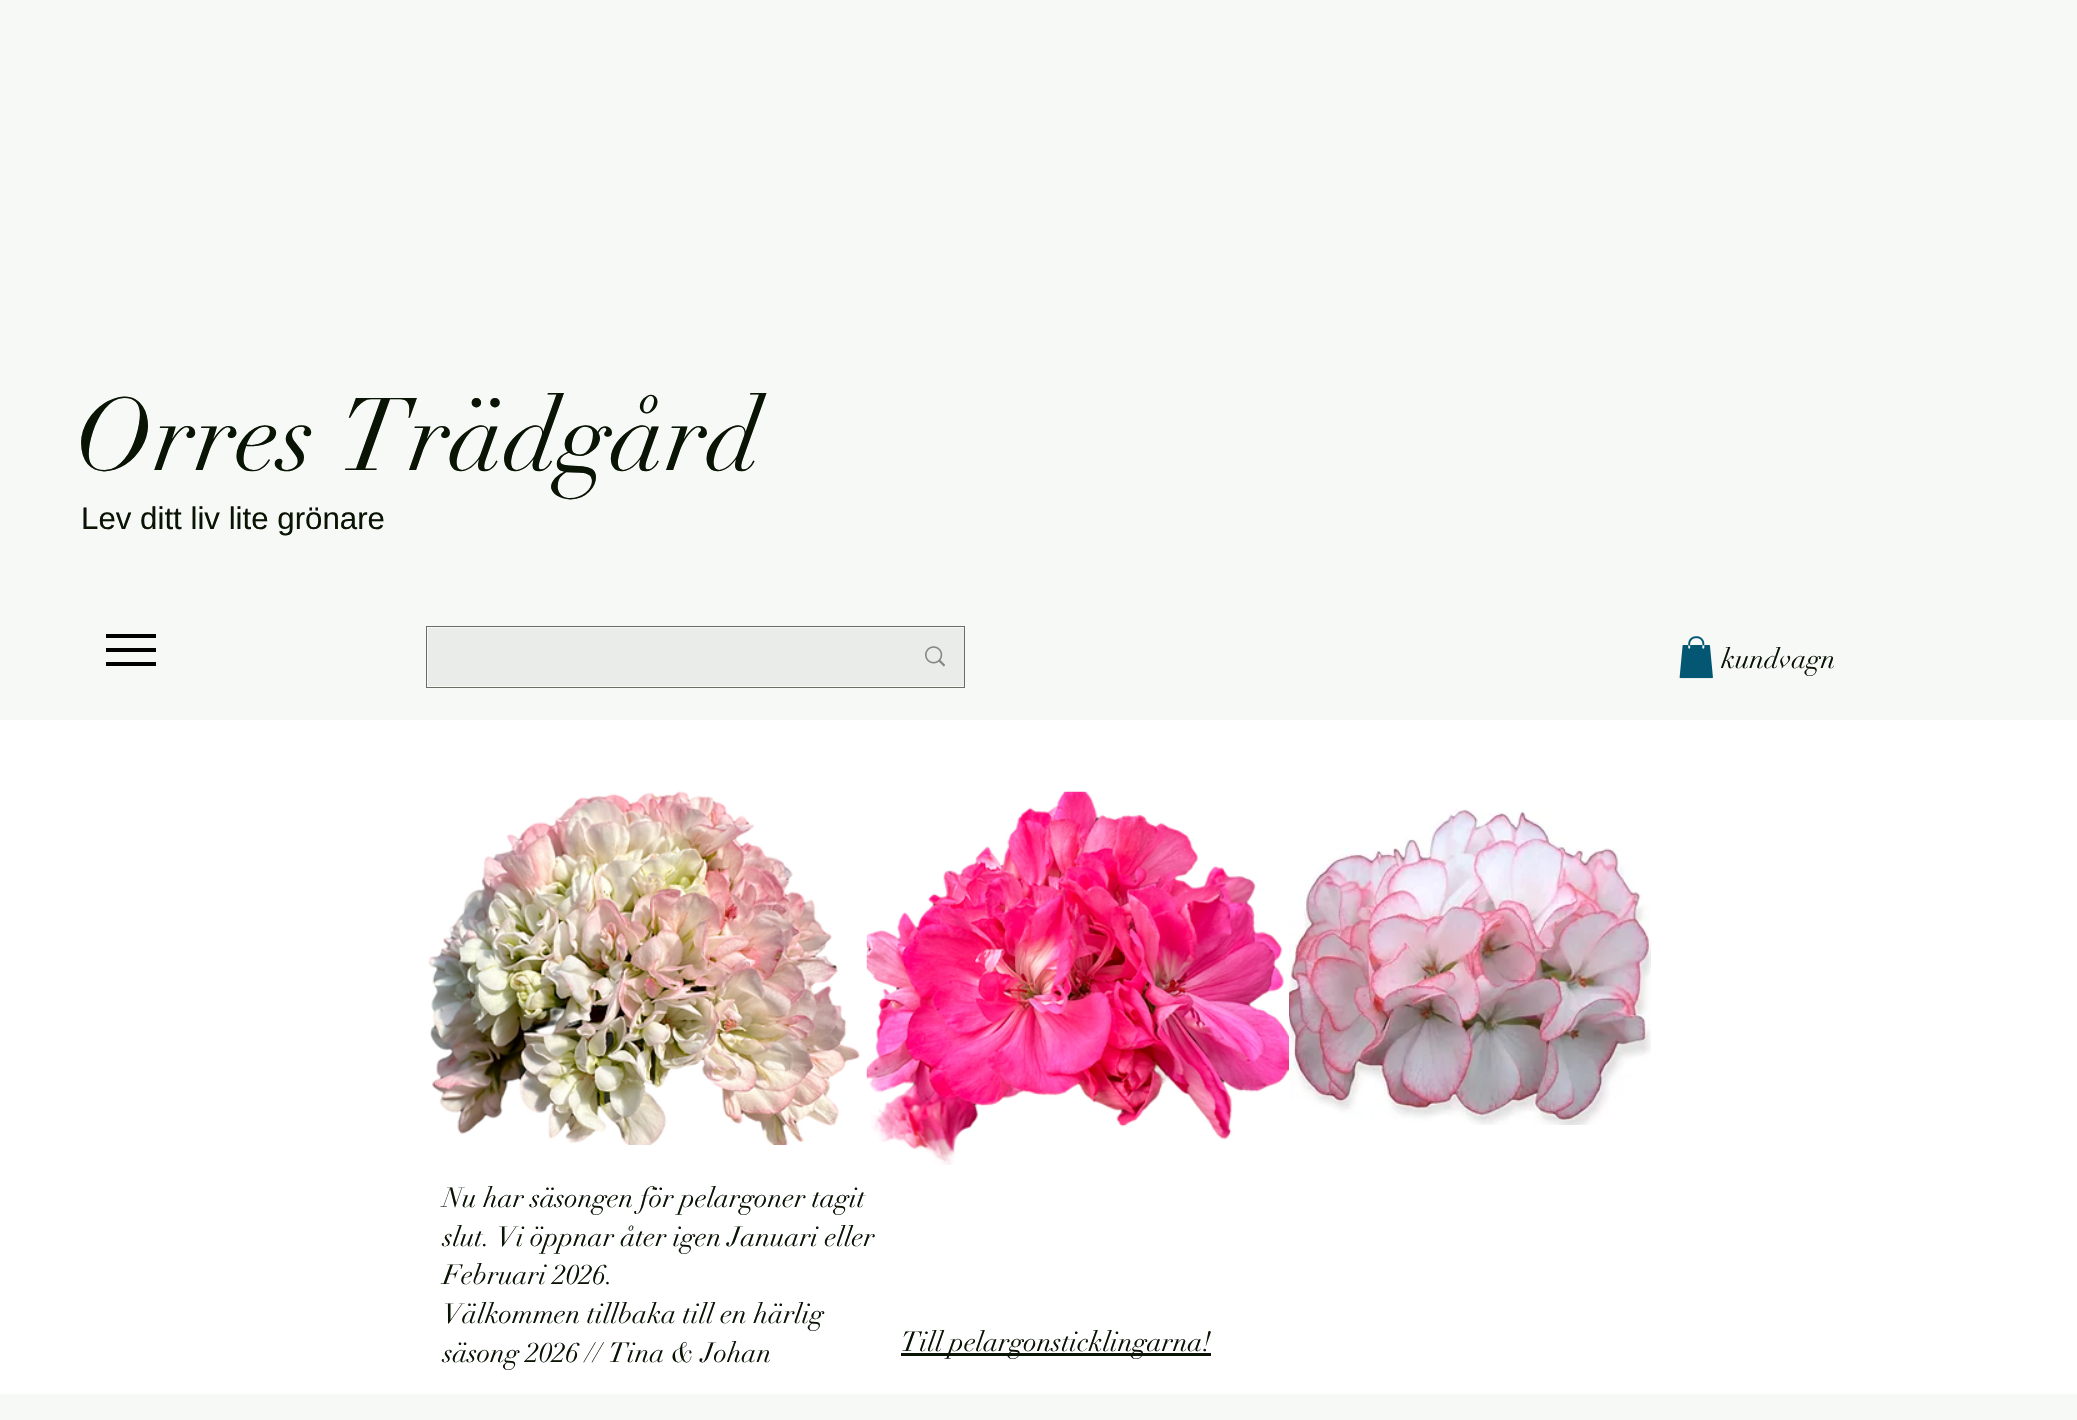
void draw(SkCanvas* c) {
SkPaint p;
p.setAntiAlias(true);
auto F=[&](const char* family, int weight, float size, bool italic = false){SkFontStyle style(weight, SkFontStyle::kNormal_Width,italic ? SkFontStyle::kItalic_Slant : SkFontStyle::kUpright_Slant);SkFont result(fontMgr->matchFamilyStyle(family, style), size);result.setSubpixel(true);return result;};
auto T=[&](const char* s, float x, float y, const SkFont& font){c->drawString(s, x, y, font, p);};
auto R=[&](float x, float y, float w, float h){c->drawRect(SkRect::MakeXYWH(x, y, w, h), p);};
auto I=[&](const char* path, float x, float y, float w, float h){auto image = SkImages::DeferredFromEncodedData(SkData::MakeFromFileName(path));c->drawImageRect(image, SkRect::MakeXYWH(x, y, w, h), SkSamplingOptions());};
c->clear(0xffffffff);
p.setColor(0xfff6f9f5);
R(0,0,2077,720);
auto f1 = F("didot",400,101.25);
p.setColor(0xff091405);
T("Orres Trädgård",75,470,f1);
auto f2 = F("Liberation Sans",400,31.25);
T("Lev ditt liv lite grönare",81,529,f2);
p.setColor(0xff000000);
R(106,662,50,4);
R(106,634,50,4);
R(106,648,50,4);
I("1.png",1679,636,34,43);
auto f3 = F("didot",400,27.5);
p.setColor(0xff091405);
T("kundvagn",1721,668,f3);
p.setStroke(true);
p.setStrokeWidth(1);
p.setColor(0xff687065);
c->drawRect(SkRect::MakeXYWH(426.5,626.5,538,61),p);
p.setStroke(false);
p.setColor(0xffe9ece8);
R(428,628,536,58);
I("2.png",925,646,20,21);
I("3.png",428,791,432,354);
I("4.png",866,791,423,374);
I("5.png",1289,809,362,316);
p.setColor(0xff091405);
T("Nu har säsongen för pelargoner tagit",443,1207,f3);
T("slut. Vi öppnar åter igen Januari eller",443,1246,f3);
T("Februari 2026.",443,1284,f3);
T("Välkommen tillbaka till en härlig",443,1323,f3);
T("säsong 2026 // Tina & Johan",443,1362,f3);
R(901,1353,310,3);
T("Till pelargonsticklingarna!",901,1351,f3);
p.setColor(0xfff6f9f5);
R(0,1394,2077,26);
}
